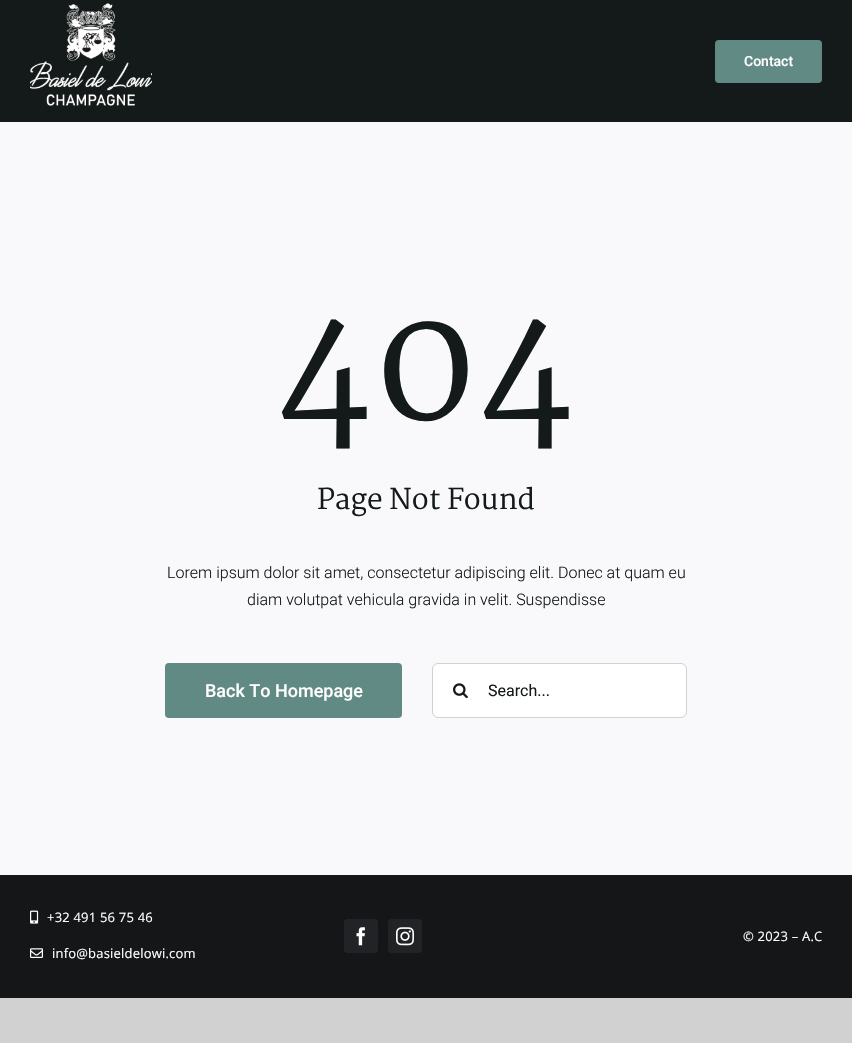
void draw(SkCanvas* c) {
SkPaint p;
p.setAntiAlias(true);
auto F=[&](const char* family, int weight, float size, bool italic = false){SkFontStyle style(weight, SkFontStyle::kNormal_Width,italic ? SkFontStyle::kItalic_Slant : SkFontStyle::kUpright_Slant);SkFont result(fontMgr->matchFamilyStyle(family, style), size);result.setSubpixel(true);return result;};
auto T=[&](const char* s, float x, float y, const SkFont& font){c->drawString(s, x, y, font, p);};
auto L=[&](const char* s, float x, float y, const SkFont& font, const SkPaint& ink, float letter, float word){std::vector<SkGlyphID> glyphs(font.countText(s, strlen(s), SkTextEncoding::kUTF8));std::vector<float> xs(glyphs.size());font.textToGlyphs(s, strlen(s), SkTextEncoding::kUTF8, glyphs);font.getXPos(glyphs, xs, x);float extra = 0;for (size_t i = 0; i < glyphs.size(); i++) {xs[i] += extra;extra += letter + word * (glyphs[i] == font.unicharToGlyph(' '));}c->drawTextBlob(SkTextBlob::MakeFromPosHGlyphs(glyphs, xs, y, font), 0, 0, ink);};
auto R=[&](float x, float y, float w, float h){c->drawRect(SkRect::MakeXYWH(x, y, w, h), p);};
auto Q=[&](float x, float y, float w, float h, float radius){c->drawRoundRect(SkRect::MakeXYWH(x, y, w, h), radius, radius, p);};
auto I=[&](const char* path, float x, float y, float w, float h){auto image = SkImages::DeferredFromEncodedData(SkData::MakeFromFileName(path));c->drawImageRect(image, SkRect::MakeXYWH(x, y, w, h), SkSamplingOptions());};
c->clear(0xffd1d1d1);
p.setColor(0xff141a19);
R(0,0,852,122);
I("1.png",30,3,122,103);
p.setColor(0xff608a83);
Q(715,40,107,43,4);
auto f1 = F("Roboto",500,14);
p.setColor(0xffffffff);
T("Contact",744,66,f1);
p.setColor(0xfff9f9fb);
R(0,122,852,753);
auto f2 = F("Martel",400,160);
p.setColor(0xff141a19);
T("404",276,419,f2);
auto f3 = F("Martel",400,28);
T("Page Not Found",317,509,f3);
auto f4 = F("Roboto",300,16);
T("Lorem ipsum dolor sit amet, consectetur adipiscing elit. Donec at quam eu",167,578,f4);
T("diam volutpat vehicula gravida in velit. Suspendisse",247,605,f4);
p.setColor(0xff608a83);
Q(165,663,237,55,4);
auto f5 = F("Roboto",500,18);
p.setColor(0xffffffff);
T("Back To Homepage",205,697,f5);
c->drawRoundRect(SkRect::MakeXYWH(432.5,663.5,254,54),5.5,5.5,p);
p.setStroke(true);
p.setStrokeWidth(1);
p.setColor(0xffd1d1d1);
c->drawRoundRect(SkRect::MakeXYWH(432.5,663.5,254,54),5.5,5.5,p);
I("2.png",453,683,15,16);
auto f6 = F("Roboto",400,16);
p.setStroke(false);
p.setColor(0xff141a19);
T("Search...",488,696,f6);
p.setColor(0xff141617);
R(0,875,852,123);
I("3.png",30,910,9,14);
auto f7 = F("Open Sans",400,13);
p.setColor(0xffffffff);
L("+32 491 56 75 46",47,922,f7,p,.2,0);
I("4.png",30,948,13,10);
L("info@basieldelowi.com",52,958,f7,p,.2,0);
p.setColor(0xff212326);
Q(344,919,34,34,4);
I("5.png",356,927,9,19);
Q(388,919,34,34,4);
I("6.png",396,927,18,19);
p.setColor(0xffffffff);
L("© 2023 – A.C",743,941,f7,p,.2,0);
}
